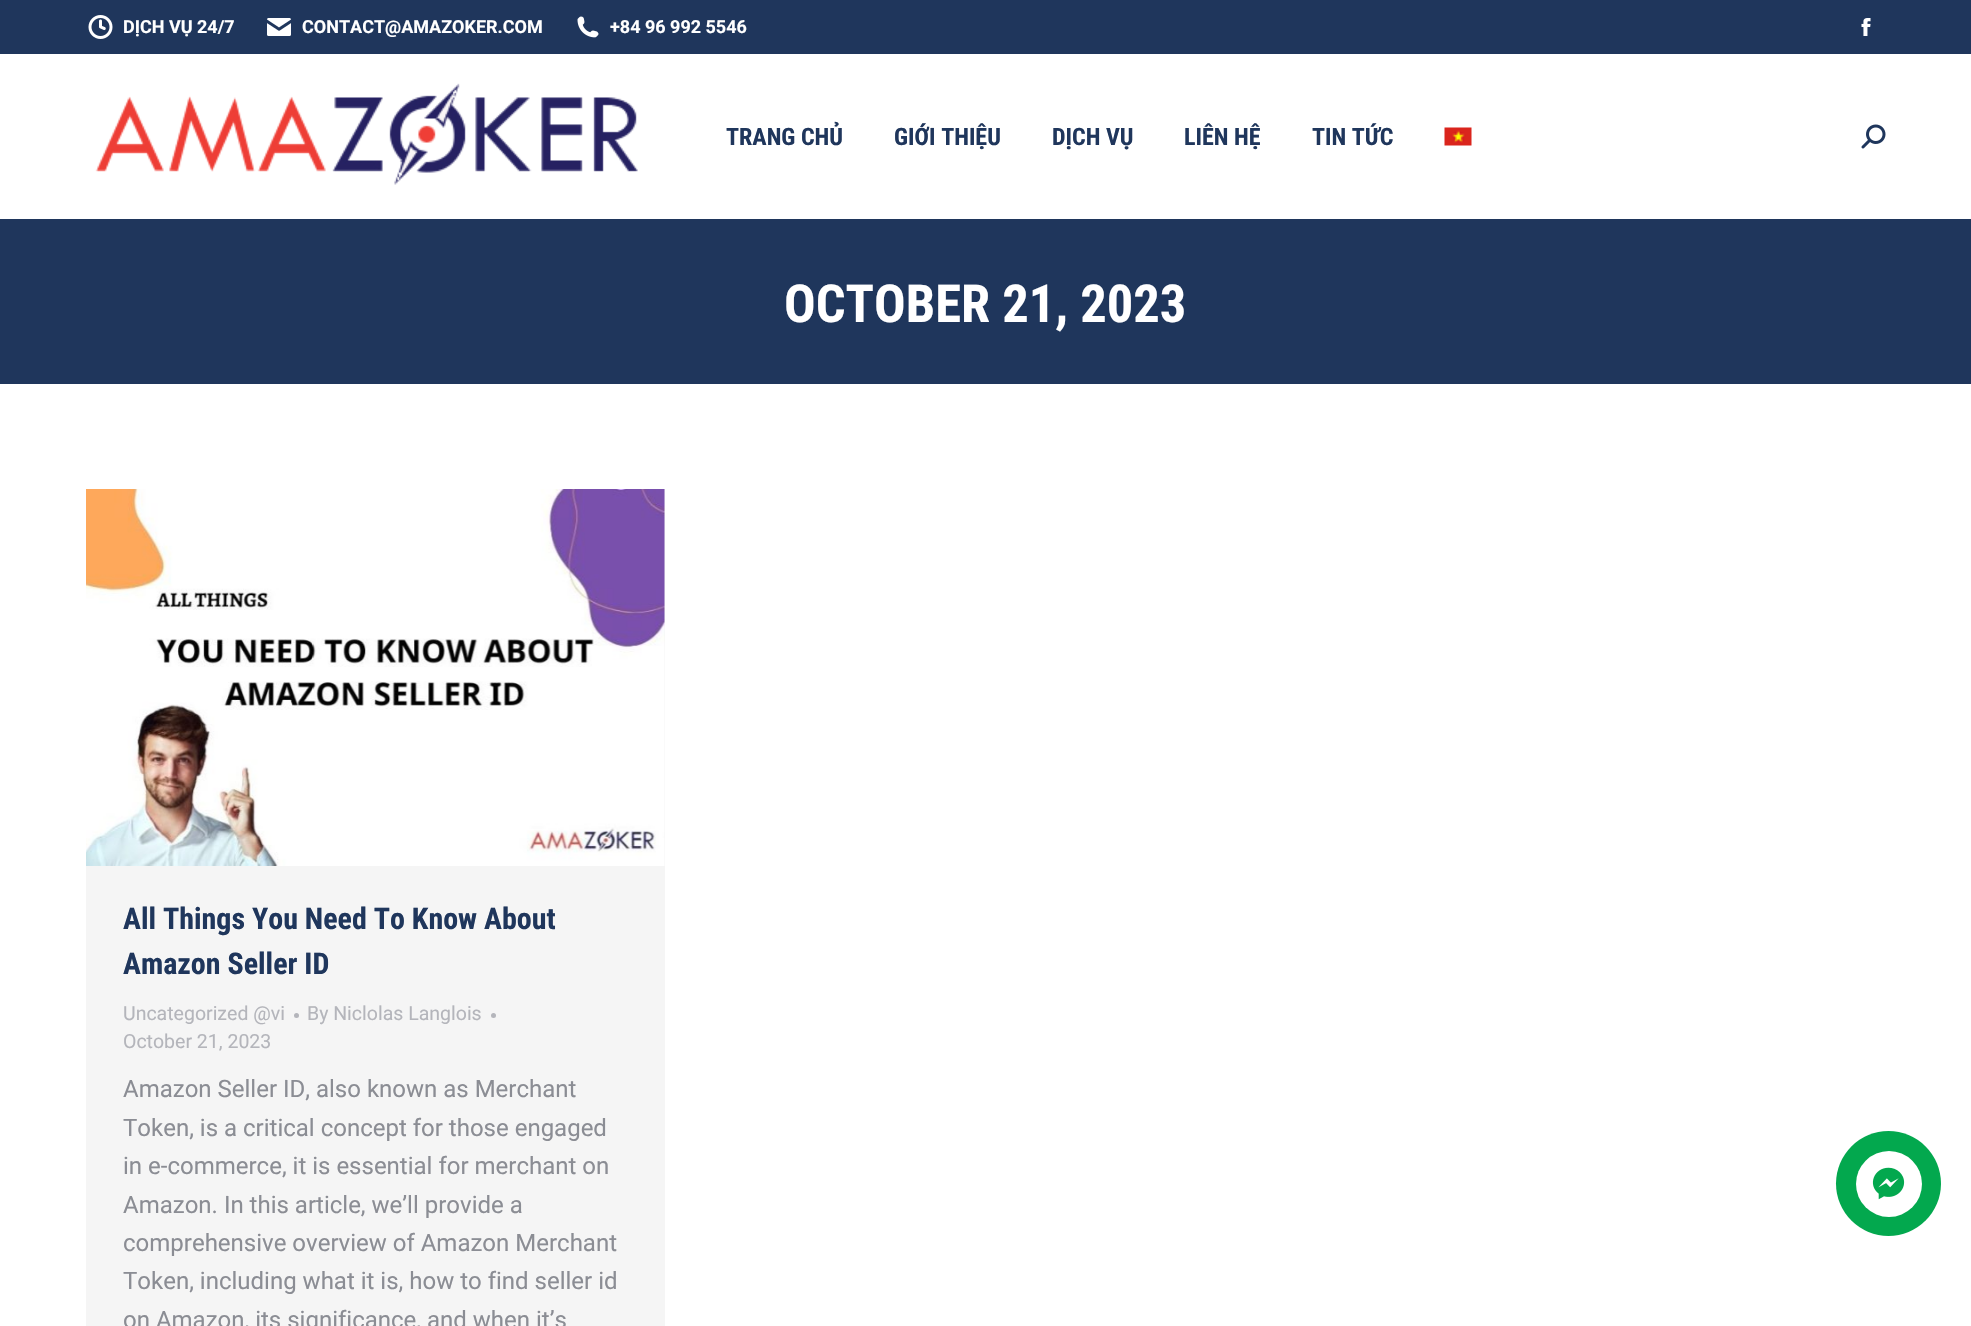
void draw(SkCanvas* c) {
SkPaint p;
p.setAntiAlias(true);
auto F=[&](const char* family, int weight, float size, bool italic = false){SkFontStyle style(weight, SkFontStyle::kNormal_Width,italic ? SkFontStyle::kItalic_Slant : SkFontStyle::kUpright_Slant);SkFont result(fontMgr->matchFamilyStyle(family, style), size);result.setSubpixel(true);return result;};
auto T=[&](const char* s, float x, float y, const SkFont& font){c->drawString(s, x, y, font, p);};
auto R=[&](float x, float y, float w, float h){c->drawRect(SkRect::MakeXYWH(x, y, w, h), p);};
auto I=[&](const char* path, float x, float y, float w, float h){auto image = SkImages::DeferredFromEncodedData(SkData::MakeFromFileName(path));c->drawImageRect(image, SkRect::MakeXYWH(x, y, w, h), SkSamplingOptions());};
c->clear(0xffffffff);
p.setColor(0xff1f365c);
R(0,0,1971,54);
I("1.png",88,15,25,24);
auto f1 = F("Roboto",700,18);
p.setColor(0xffffffff);
T("DỊCH VỤ 24/7",123,33,f1);
I("2.png",267,18,24,18);
T("CONTACT@AMAZOKER.COM",302,33,f1);
I("3.png",577,16,22,22);
T("+84 96 992 5546",610,33,f1);
I("4.png",1861,18,10,18);
I("5.png",95,83,543,102);
auto f2 = F("Roboto Condensed",700,24);
p.setColor(0xff1f365c);
T("TRANG CHỦ",726,145,f2);
T("GIỚI THIỆU",894,145,f2);
T("DỊCH VỤ",1052,145,f2);
T("LIÊN HỆ",1184,145,f2);
T("TIN TỨC",1312,145,f2);
I("6.png",1444,127,28,19);
I("7.png",1861,124,25,25);
R(0,219,1971,165);
auto f3 = F("Roboto Condensed",700,52.5);
p.setColor(0xffffffff);
T("OCTOBER 21, 2023",784,322,f3);
p.setColor(0xfff5f5f5);
R(86,489,579,837);
I("8.png",86,489,579,377);
auto f4 = F("Roboto Condensed",700,30);
p.setColor(0xff1f365c);
T("All Things You Need To Know About",123,929,f4);
T("Amazon Seller ID",123,974,f4);
auto f5 = F("Roboto",400,19.5);
p.setColor(0xffb4b5bb);
T("Uncategorized @vi",123,1020,f5);
c->drawCircle(296.5,1015.5,2.5,p);
T("By Niclolas Langlois",307,1020,f5);
c->drawCircle(493.5,1015.5,2.5,p);
T("October 21, 2023",123,1048,f5);
auto f6 = F("Roboto",400,24);
p.setColor(0xff8b8d94);
T("Amazon Seller ID, also known as Merchant",123,1097,f6);
T("Token, is a critical concept for those engaged",123,1136,f6);
T("in e-commerce, it is essential for merchant on",123,1174,f6);
T("Amazon. In this article, we’ll provide a",123,1213,f6);
T("comprehensive overview of Amazon Merchant",123,1251,f6);
T("Token, including what it is, how to find seller id",123,1289,f6);
T("on Amazon, its significance, and when it’s",123,1328,f6);
p.setColor(0xff03a84e);
c->drawCircle(1888.5,1183.5,52.5,p);
p.setColor(0xffffffff);
c->drawCircle(1889,1184,33,p);
I("9.png",1872,1167,33,33);
}
